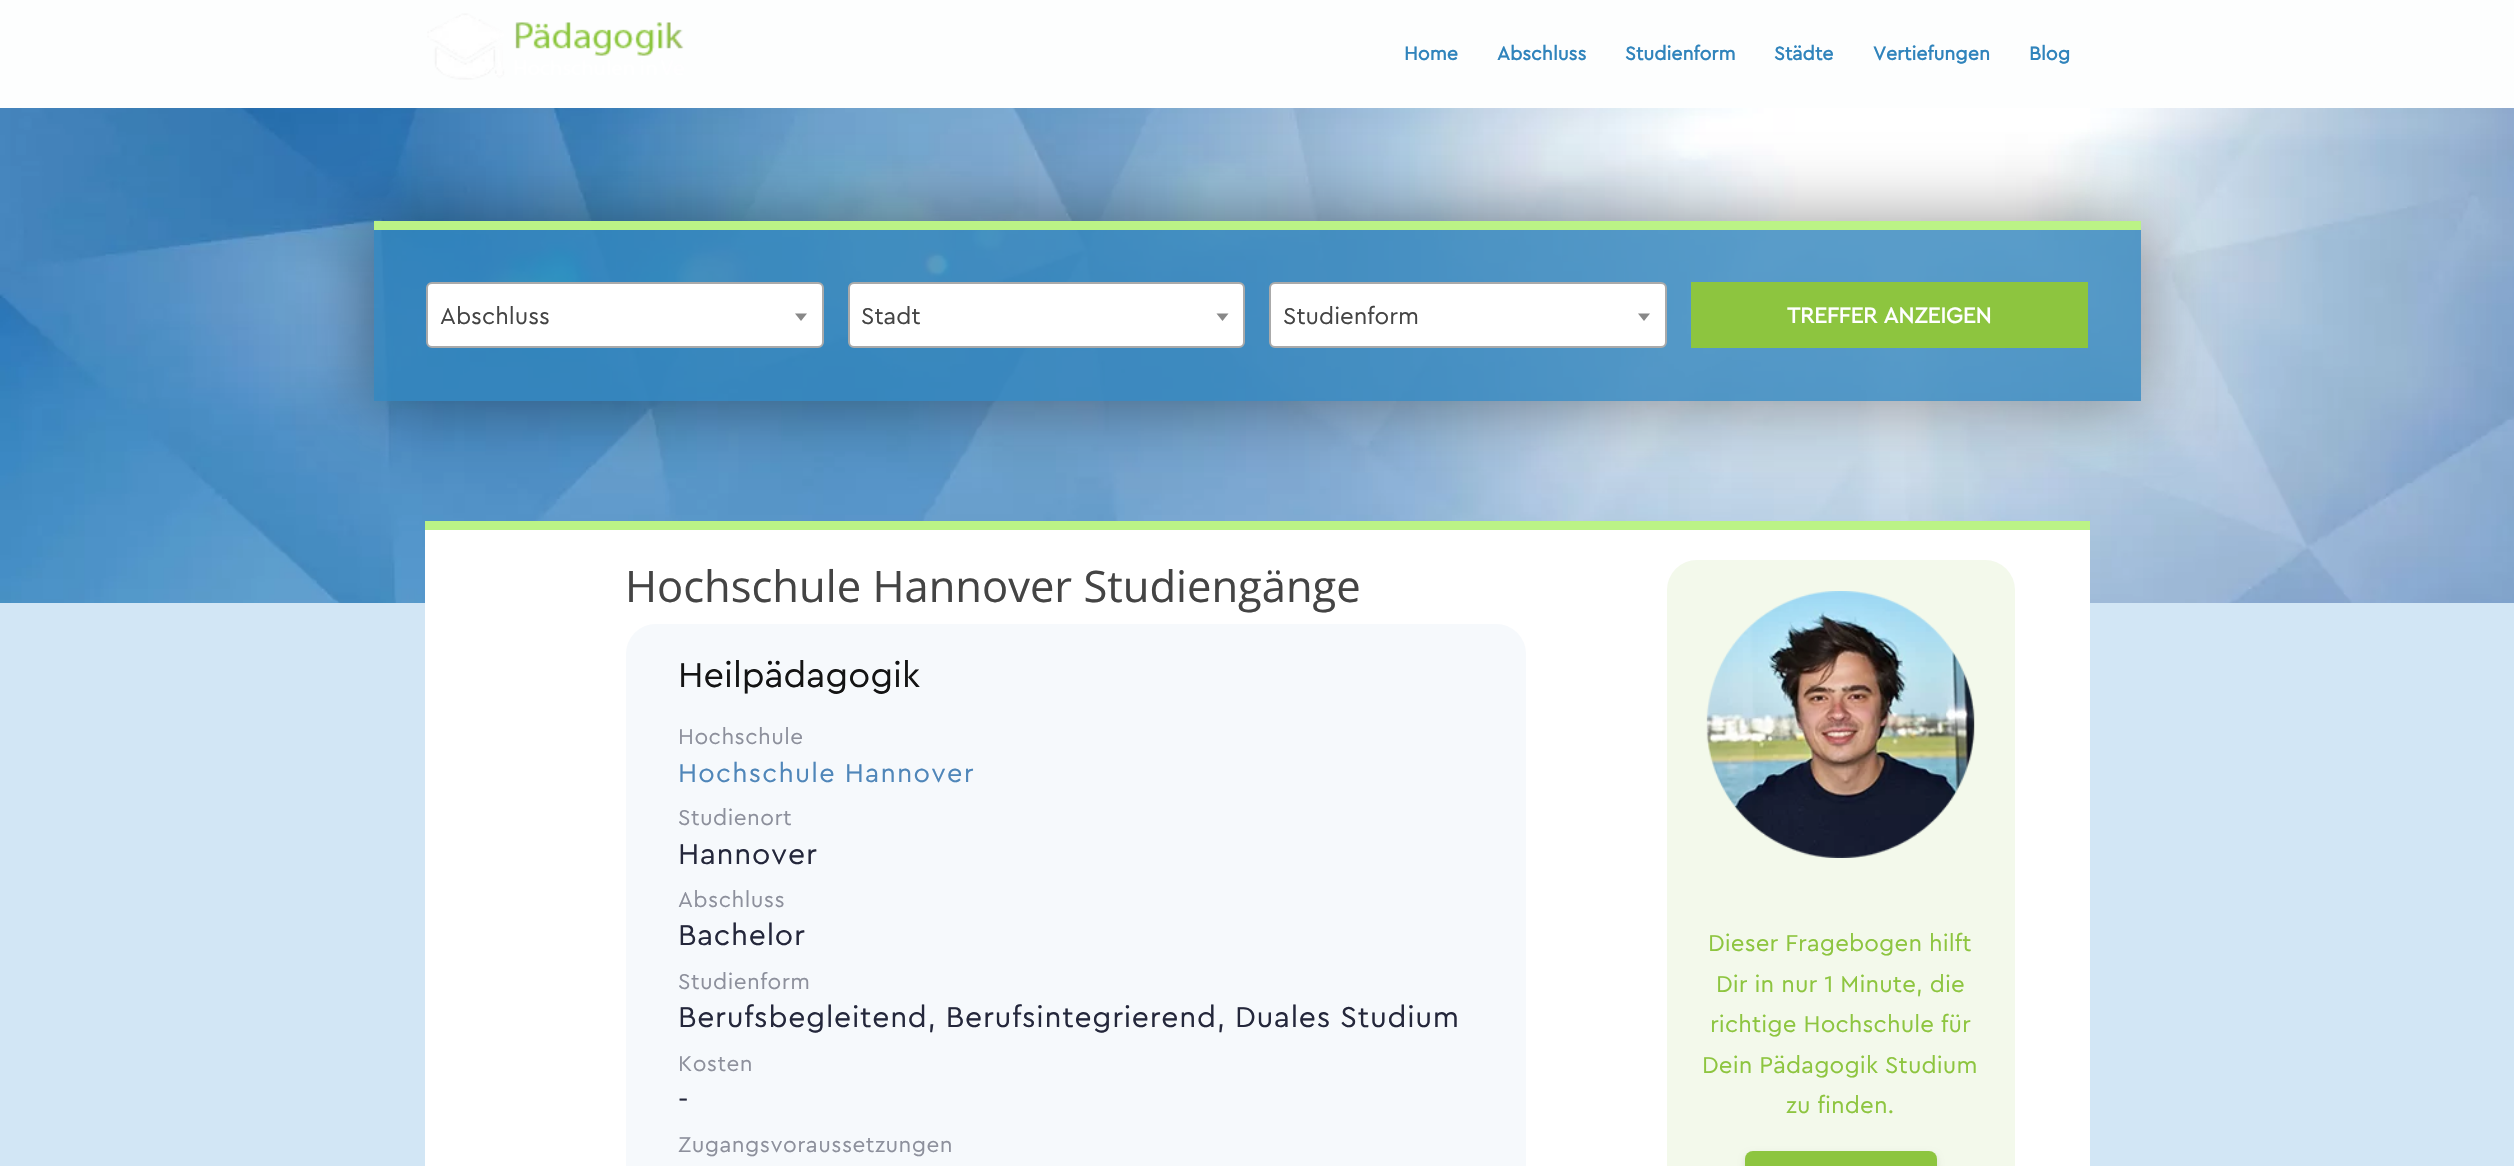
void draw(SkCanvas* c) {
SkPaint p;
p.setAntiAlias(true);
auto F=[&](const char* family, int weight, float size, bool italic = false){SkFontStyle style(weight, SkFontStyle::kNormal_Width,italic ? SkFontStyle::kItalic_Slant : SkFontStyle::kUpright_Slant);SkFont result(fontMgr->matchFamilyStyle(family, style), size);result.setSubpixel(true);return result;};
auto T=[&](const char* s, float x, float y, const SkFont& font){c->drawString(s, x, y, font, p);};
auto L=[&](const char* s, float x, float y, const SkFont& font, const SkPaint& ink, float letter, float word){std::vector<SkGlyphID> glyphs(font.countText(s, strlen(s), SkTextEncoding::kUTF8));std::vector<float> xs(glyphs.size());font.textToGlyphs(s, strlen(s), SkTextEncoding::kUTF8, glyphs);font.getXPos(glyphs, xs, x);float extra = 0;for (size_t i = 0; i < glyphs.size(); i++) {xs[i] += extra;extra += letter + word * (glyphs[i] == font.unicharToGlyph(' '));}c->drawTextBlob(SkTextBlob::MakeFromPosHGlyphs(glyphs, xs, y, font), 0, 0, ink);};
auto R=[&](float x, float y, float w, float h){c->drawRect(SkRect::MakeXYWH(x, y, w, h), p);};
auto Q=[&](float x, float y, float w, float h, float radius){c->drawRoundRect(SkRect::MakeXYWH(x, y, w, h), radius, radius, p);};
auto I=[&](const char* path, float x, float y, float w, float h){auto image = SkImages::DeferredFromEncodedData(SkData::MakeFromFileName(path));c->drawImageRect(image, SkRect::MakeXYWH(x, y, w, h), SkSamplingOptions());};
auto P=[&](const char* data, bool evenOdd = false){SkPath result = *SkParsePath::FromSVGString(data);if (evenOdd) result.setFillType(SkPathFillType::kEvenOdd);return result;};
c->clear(0xffd2e6f5);
I("2.png",0,108,2514,495);
c->save();
c->clipPath(P("M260 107h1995v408h-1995zm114 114h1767v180h-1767z",true),true);
p.setColor(0x66000000);
p.setMaskFilter(SkMaskFilter::MakeBlur(kNormal_SkBlurStyle, 37.5));
c->drawRect(SkRect::MakeXYWH(374,221,1767,180),p);
p.setMaskFilter(nullptr);
c->restore();
p.setColor(0xfffdfefe);
R(0,0,2514,108);
I("1.png",427,13,257,67);
auto f1 = F("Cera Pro",700,19.5);
p.setColor(0xff3084bc);
T("Home",1404,60,f1);
T("Abschluss",1497,60,f1);
T("Studienform",1625,60,f1);
T("Städte",1774,60,f1);
T("Vertiefungen",1873,60,f1);
T("Blog",2029,60,f1);
p.setColor(0xcc3083bc);
R(374,230,1767,171);
p.setColor(0xffbbf386);
R(374,221,1767,9);
p.setColor(0xffffffff);
c->drawRoundRect(SkRect::MakeXYWH(427,283,396,64),5,5,p);
p.setStroke(true);
p.setStrokeWidth(2);
p.setColor(0xffaaaaaa);
c->drawRoundRect(SkRect::MakeXYWH(427,283,396,64),5,5,p);
auto f2 = F("Cera Pro",400,24);
p.setStroke(false);
p.setColor(0xff444444);
T("Abschluss",440,324,f2);
p.setColor(0xff888888);
c->drawPath(P("M795 313.5h12l-6 7.5z"),p);
p.setColor(0xffffffff);
c->drawRoundRect(SkRect::MakeXYWH(849,283,395,64),5,5,p);
p.setStroke(true);
p.setColor(0xffaaaaaa);
c->drawRoundRect(SkRect::MakeXYWH(849,283,395,64),5,5,p);
p.setStroke(false);
p.setColor(0xff444444);
T("Stadt",861,324,f2);
p.setColor(0xff888888);
c->drawPath(P("M1216.5 313.5h12l-6 7.5z"),p);
p.setColor(0xffffffff);
c->drawRoundRect(SkRect::MakeXYWH(1270,283,396,64),5,5,p);
p.setStroke(true);
p.setColor(0xffaaaaaa);
c->drawRoundRect(SkRect::MakeXYWH(1270,283,396,64),5,5,p);
p.setStroke(false);
p.setColor(0xff444444);
T("Studienform",1283,324,f2);
p.setColor(0xff888888);
c->drawPath(P("M1638 313.5h12l-6 7.5z"),p);
p.setColor(0xff8dc53f);
R(1691,282,397,66);
auto f3 = F("Cera Pro",700,22.5);
p.setColor(0xffffffff);
T("TREFFER ANZEIGEN",1787,323,f3);
R(425,530,1665,636);
p.setColor(0xffbbf386);
R(425,521,1665,9);
auto f4 = F("Open Sans",400,43.5);
p.setColor(0xff444444);
T("Hochschule Hannover Studiengänge",625,602,f4);
p.setColor(0xfff6f9fc);
Q(626,624,900,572,30);
auto f5 = F("Cera Pro",400,36);
p.setColor(0xff141414);
T("Heilpädagogik",678,687,f5);
auto f6 = F("Cera Pro",400,22.5);
p.setColor(0xff8d909c);
L("Hochschule",678,744,f6,p,.45,0);
auto f7 = F("Cera Pro",400,27);
p.setColor(0xff4f86b9);
L("Hochschule Hannover",678,782,f7,p,1.25,0);
p.setColor(0xff8d909c);
L("Studienort",678,825,f6,p,.45,0);
auto f8 = F("Cera Pro",400,30);
p.setColor(0xff24273b);
L("Hannover",678,864,f8,p,.75,0);
p.setColor(0xff8d909c);
L("Abschluss",678,907,f6,p,.45,0);
p.setColor(0xff24273b);
L("Bachelor",678,945,f8,p,.75,0);
p.setColor(0xff8d909c);
L("Studienform",678,989,f6,p,.45,0);
p.setColor(0xff24273b);
L("Berufsbegleitend, Berufsintegrierend, Duales Studium",678,1027,f8,p,.75,0);
p.setColor(0xff8d909c);
L("Kosten",678,1071,f6,p,.45,0);
p.setColor(0xff24273b);
L("-",678,1109,f8,p,.75,0);
p.setColor(0xff8d909c);
L("Zugangsvoraussetzungen",678,1152,f6,p,.45,0);
p.setColor(0xfff3f9eb);
Q(1667,560,348,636,30);
I("3.png",1706,591,269,267);
p.setColor(0xff8dc53f);
L("Dieser Fragebogen hilft",1708,951,f2,p,.15,0);
L("Dir in nur 1 Minute, die",1716,992,f2,p,.15,0);
L("richtige Hochschule für",1710,1032,f2,p,.15,0);
L("Dein Pädagogik Studium",1702,1073,f2,p,.15,0);
L("zu finden.",1786,1113,f2,p,.15,0);
p.setColor(0x1a000000);
p.setMaskFilter(SkMaskFilter::MakeBlur(kNormal_SkBlurStyle, 3));
c->drawRoundRect(SkRect::MakeXYWH(1745,1154,192,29),8,8,p);
p.setMaskFilter(nullptr);
p.setColor(0xff8dc53f);
Q(1745,1151,192,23,8);
}
